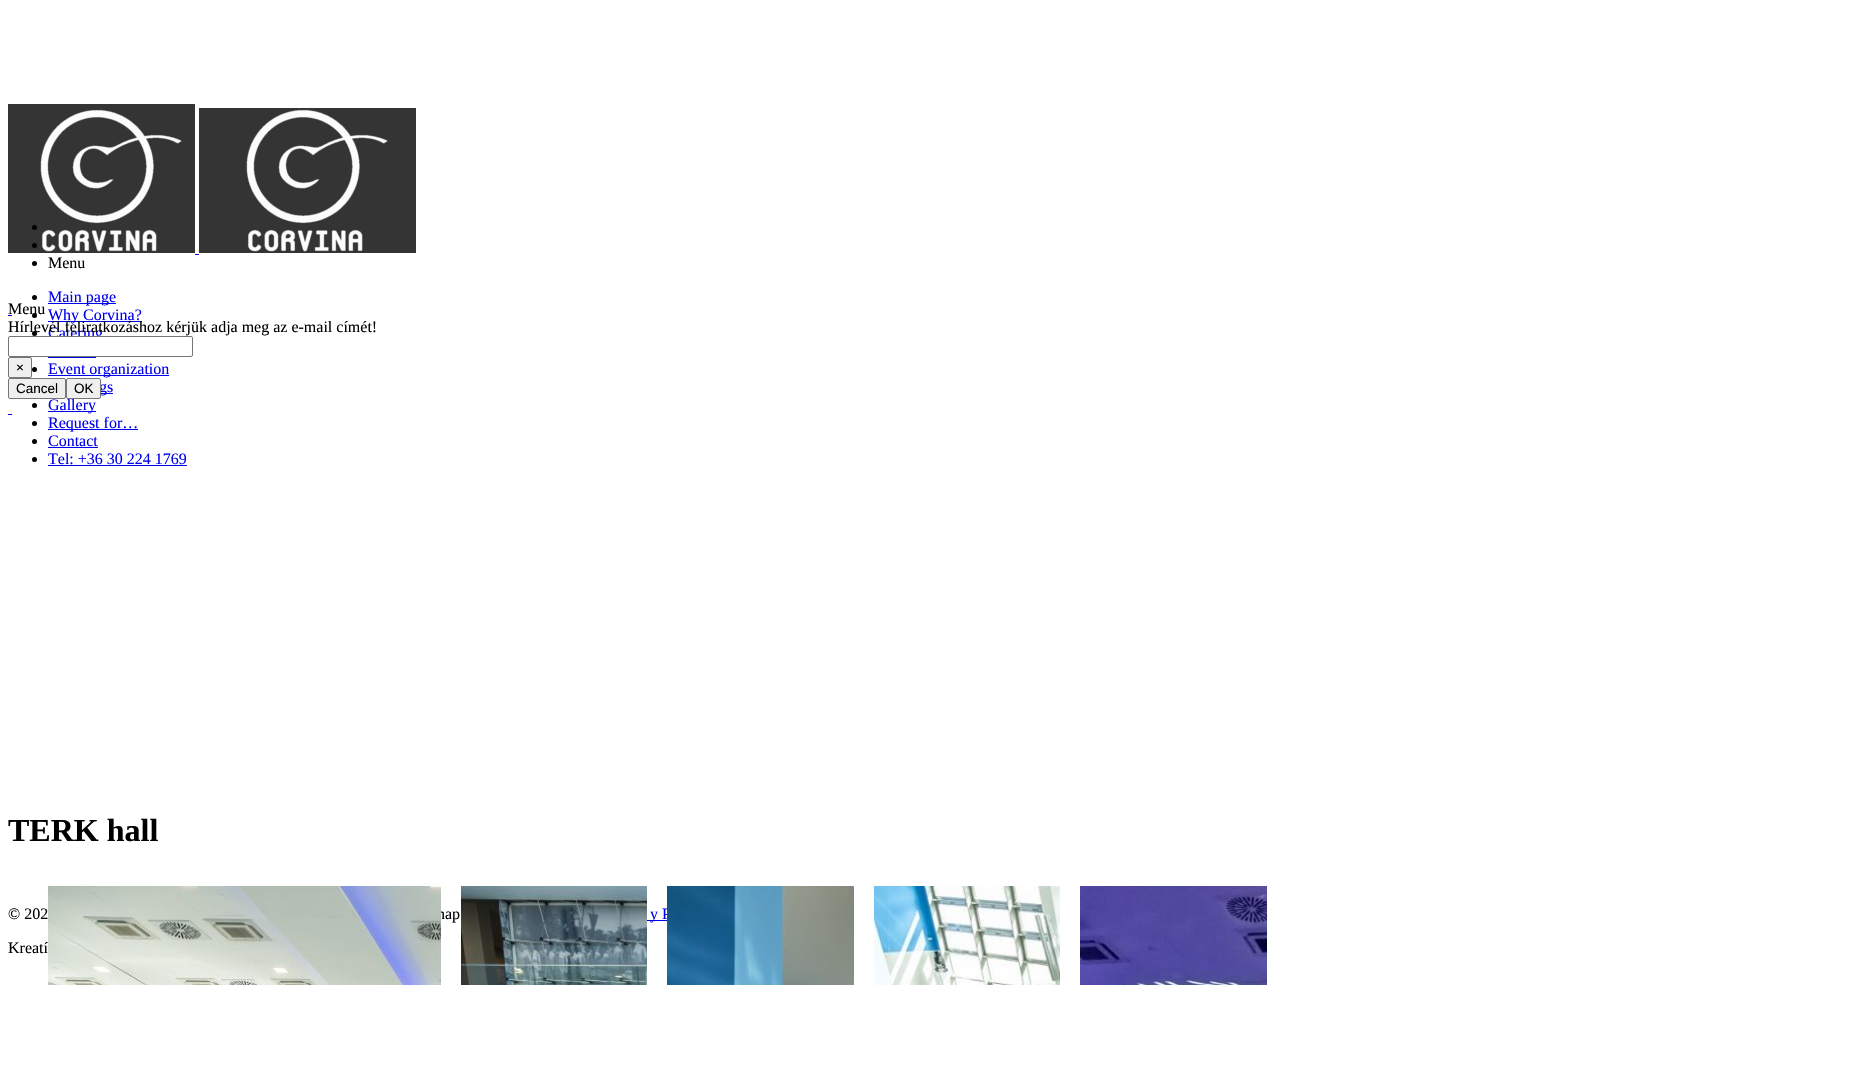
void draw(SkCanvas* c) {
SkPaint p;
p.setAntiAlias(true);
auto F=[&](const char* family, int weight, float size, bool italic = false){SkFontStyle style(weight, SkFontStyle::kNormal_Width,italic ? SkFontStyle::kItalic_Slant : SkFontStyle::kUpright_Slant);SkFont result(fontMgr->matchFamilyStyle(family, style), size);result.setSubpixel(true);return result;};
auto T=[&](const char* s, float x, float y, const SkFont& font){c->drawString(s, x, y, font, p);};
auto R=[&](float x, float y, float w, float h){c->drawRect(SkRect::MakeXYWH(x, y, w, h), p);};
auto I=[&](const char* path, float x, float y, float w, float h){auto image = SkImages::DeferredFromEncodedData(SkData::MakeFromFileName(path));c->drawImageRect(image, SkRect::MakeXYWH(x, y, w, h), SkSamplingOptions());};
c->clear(0xffffffff);
I("1.png",8,104,187,149);
I("2.png",199,108,217,145);
p.setColor(0xff0000ee);
R(195,254,4,1);
auto f1 = F("Liberation Serif",400,16);
p.setColor(0xff000000);
T("Menu",8,314,f1);
c->drawCircle(34.5,227.5,2.5,p);
c->drawCircle(34.5,245.5,2.5,p);
c->drawCircle(34.5,263.5,2.5,p);
T("Menu",48,268,f1);
c->drawCircle(34.5,297.5,2.5,p);
p.setColor(0xff0000ee);
R(48,303,68,1);
T("Main page",48,302,f1);
p.setColor(0xff000000);
c->drawCircle(34.5,315.5,2.5,p);
p.setColor(0xff0000ee);
R(48,321,94,1);
T("Why Corvina?",48,320,f1);
p.setColor(0xff000000);
c->drawCircle(34.5,333.5,2.5,p);
p.setColor(0xff0000ee);
T("Catering",48,338,f1);
R(48,357,48,1);
p.setColor(0xff000000);
c->drawCircle(34.5,369.5,2.5,p);
p.setColor(0xff0000ee);
R(48,375,121,1);
T("Event organization",48,374,f1);
R(101,393,12,1);
T("gs",99,392,f1);
p.setColor(0xff000000);
c->drawCircle(34.5,405.5,2.5,p);
p.setColor(0xff0000ee);
R(48,411,48,1);
T("Gallery",48,410,f1);
p.setColor(0xff000000);
c->drawCircle(34.5,423.5,2.5,p);
p.setColor(0xff0000ee);
R(48,429,90,1);
T("Request for…",48,428,f1);
p.setColor(0xff000000);
c->drawCircle(34.5,441.5,2.5,p);
p.setColor(0xff0000ee);
T("Contact",48,446,f1);
R(48,447,50,1);
p.setColor(0xff000000);
c->drawCircle(34.5,459.5,2.5,p);
p.setColor(0xff0000ee);
T("Tel: +36 30 224 1769",48,464,f1);
R(48,465,139,1);
auto f2 = F("Liberation Serif",700,32);
p.setColor(0xff000000);
T("TERK hall",8,841,f2);
T("nap",437,919,f1);
I("3.png",48,886,393,99);
I("4.png",461,886,186,99);
p.setColor(0xff0000ee);
R(647,920,20,1);
T("y P",650,919,f1);
I("5.png",667,886,187,99);
I("6.png",874,886,186,99);
I("7.png",1080,886,187,99);
p.setColor(0xff000000);
T("© 202",8,919,f1);
T("Kreatí",8,953,f1);
p.setColor(0xff0000ee);
R(8,315,4,1);
p.setColor(0xff000000);
T("Hírlevél feliratkozáshoz kérjük adja meg az e-mail címét!",8,332,f1);
p.setColor(0xffffffff);
c->drawRoundRect(SkRect::MakeXYWH(8.5,336.5,184,20),1.5,1.5,p);
p.setStroke(true);
p.setStrokeWidth(1);
p.setColor(0xff767676);
c->drawRoundRect(SkRect::MakeXYWH(8.5,336.5,184,20),1.5,1.5,p);
p.setStroke(false);
p.setColor(0xffefefef);
c->drawRoundRect(SkRect::MakeXYWH(8.5,357.5,23,20),1.5,1.5,p);
p.setStroke(true);
p.setColor(0xff767676);
c->drawRoundRect(SkRect::MakeXYWH(8.5,357.5,23,20),1.5,1.5,p);
auto f3 = F("Liberation Sans",400,13.5);
p.setStroke(false);
p.setColor(0xff000000);
T("×",16,372,f3);
p.setColor(0xffefefef);
c->drawRoundRect(SkRect::MakeXYWH(8.5,378.5,57,20),1.5,1.5,p);
p.setStroke(true);
p.setColor(0xff767676);
c->drawRoundRect(SkRect::MakeXYWH(8.5,378.5,57,20),1.5,1.5,p);
p.setStroke(false);
p.setColor(0xff000000);
T("Cancel",16,393,f3);
p.setColor(0xffefefef);
c->drawRoundRect(SkRect::MakeXYWH(66.5,378.5,34,20),1.5,1.5,p);
p.setStroke(true);
p.setColor(0xff767676);
c->drawRoundRect(SkRect::MakeXYWH(66.5,378.5,34,20),1.5,1.5,p);
p.setStroke(false);
p.setColor(0xff000000);
T("OK",74,393,f3);
p.setColor(0xff0000ee);
R(8,414,4,1);
}
